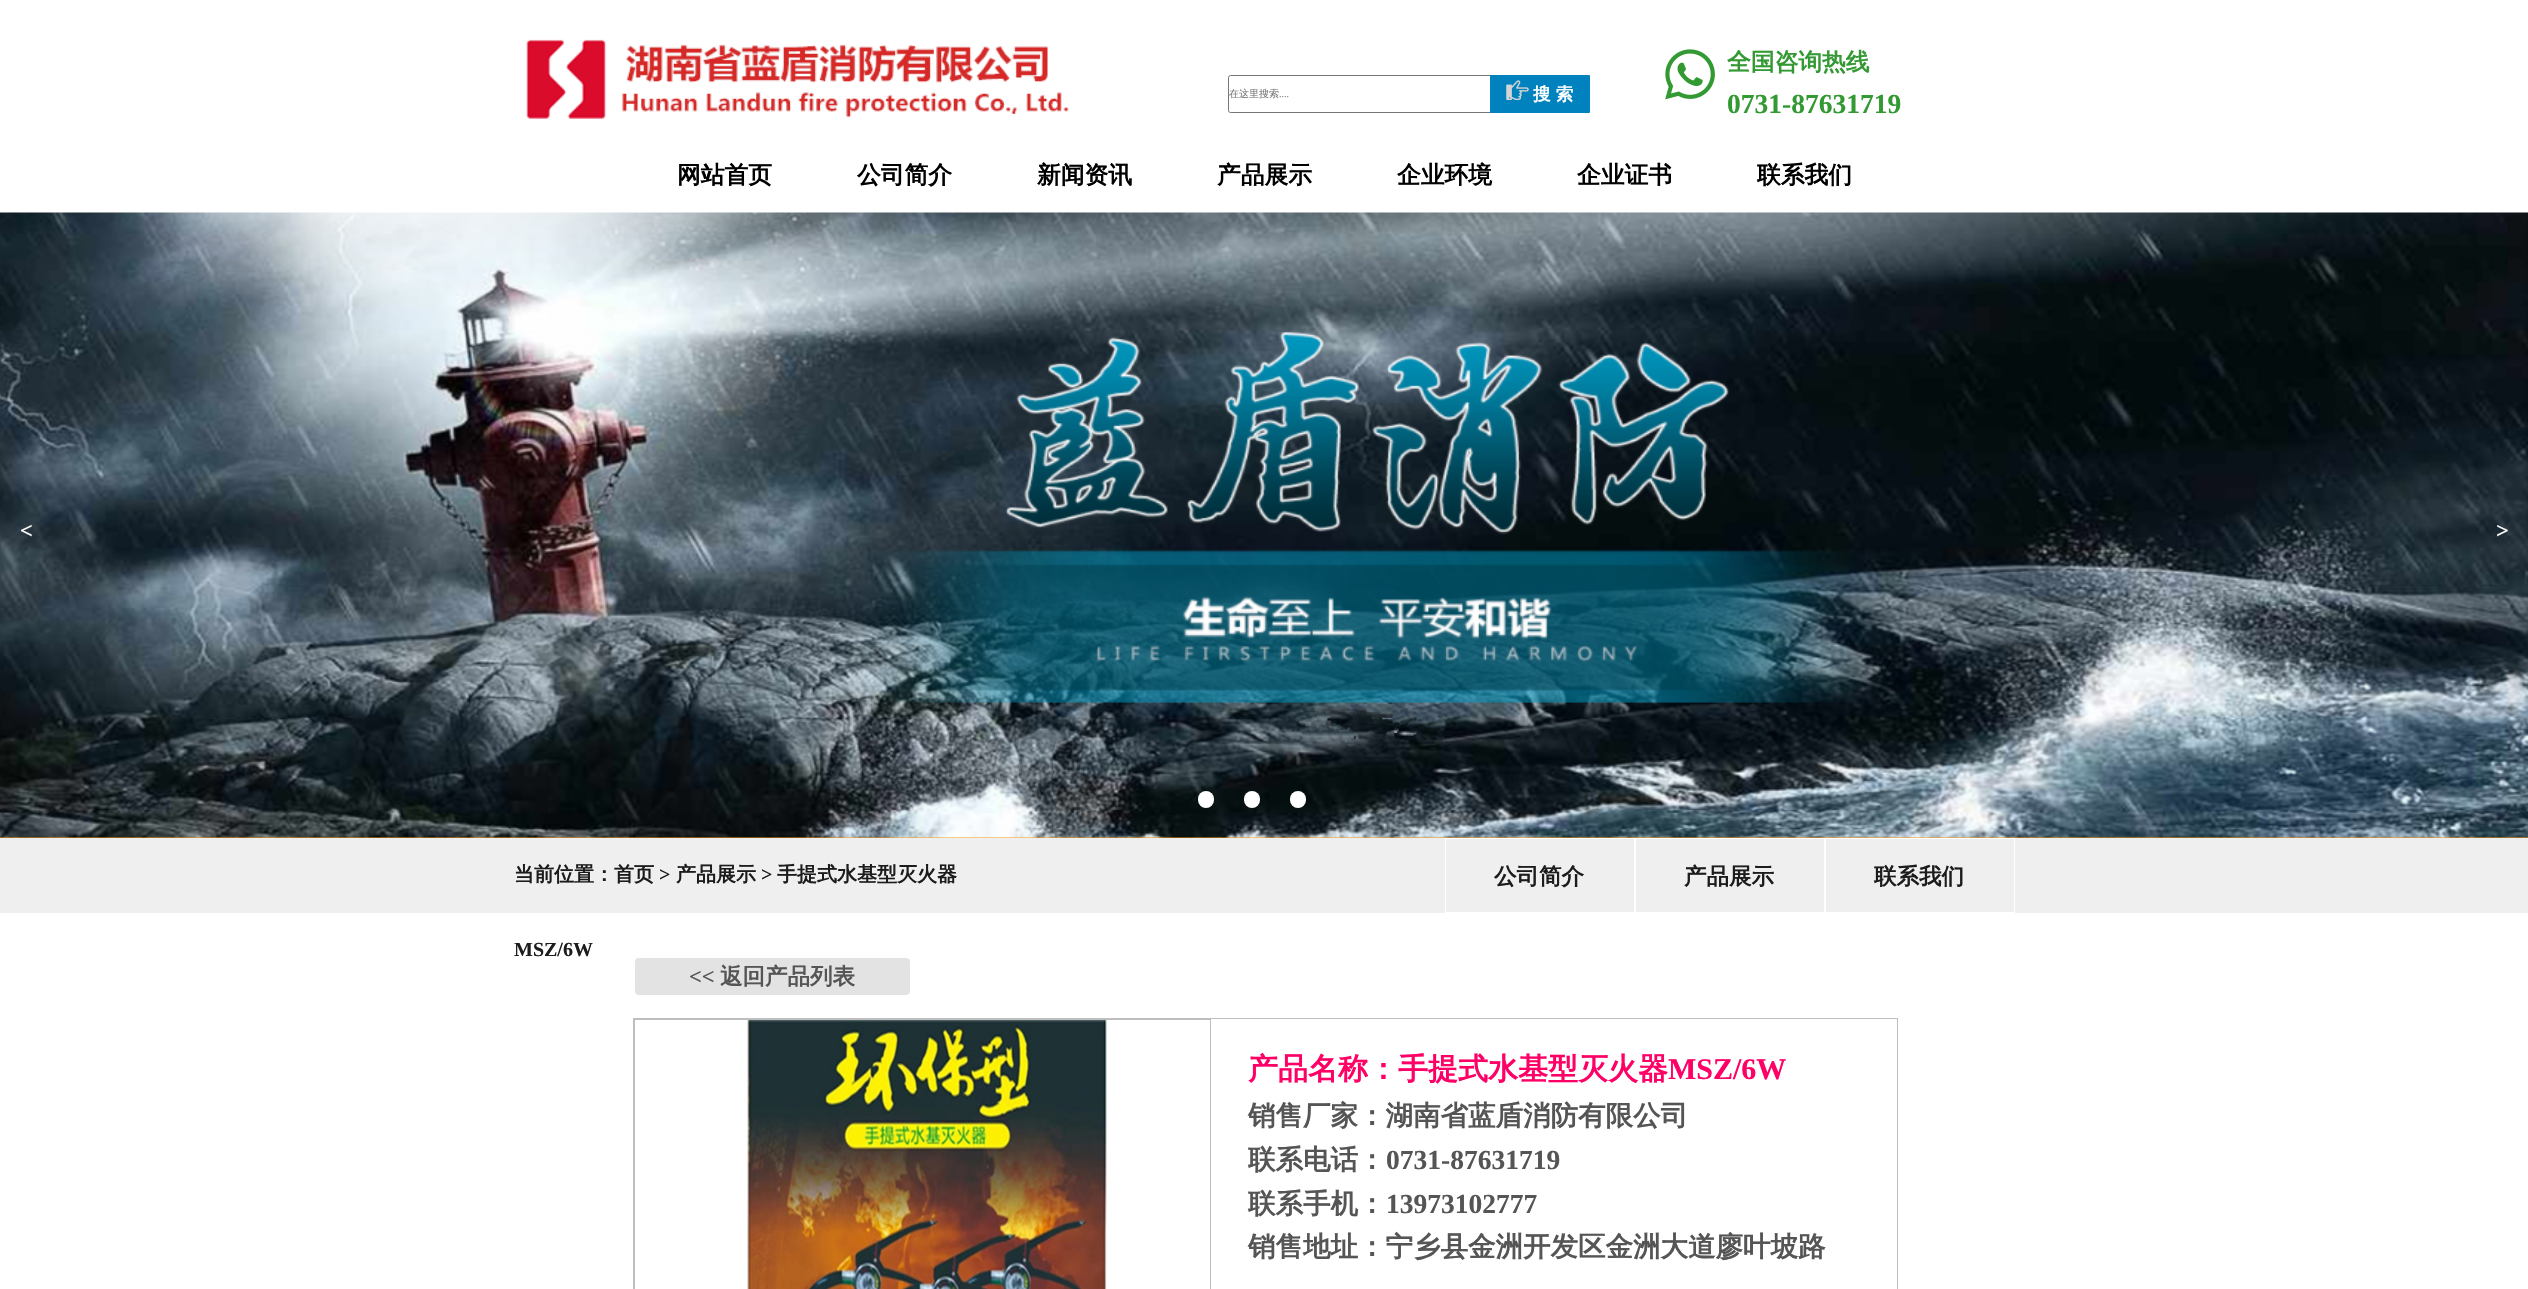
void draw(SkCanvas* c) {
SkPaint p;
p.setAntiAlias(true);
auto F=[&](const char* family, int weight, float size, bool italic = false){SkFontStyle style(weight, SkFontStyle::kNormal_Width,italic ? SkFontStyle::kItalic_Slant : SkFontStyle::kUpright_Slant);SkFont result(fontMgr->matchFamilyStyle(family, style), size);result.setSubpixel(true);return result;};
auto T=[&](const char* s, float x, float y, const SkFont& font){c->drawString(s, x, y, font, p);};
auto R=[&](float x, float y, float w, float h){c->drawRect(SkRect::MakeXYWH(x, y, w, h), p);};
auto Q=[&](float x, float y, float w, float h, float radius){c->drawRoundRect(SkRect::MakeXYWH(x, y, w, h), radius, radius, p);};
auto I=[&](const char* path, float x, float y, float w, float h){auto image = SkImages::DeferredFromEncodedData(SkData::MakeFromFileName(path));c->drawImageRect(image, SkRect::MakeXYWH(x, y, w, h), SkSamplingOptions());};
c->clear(0xffffffff);
I("1.png",526,39,543,80);
p.setStroke(true);
p.setStrokeWidth(1);
p.setColor(0xff767676);
c->drawRoundRect(SkRect::MakeXYWH(1228.5,75.5,266,37),2,2,p);
auto f1 = F("WenQuanYi Zen Hei",500,10);
p.setStroke(false);
p.setColor(0xff757575);
T("在这里搜索",1229,97,f1);
auto f2 = F("Liberation Serif",400,10);
T("....",1279,97,f2);
p.setColor(0xff0082bf);
Q(1490,75,100,38,1);
I("2.png",1506,80,23,20);
auto f3 = F("WenQuanYi Zen Hei",700,17.5);
p.setColor(0xffffffff);
T("搜 索",1533,100,f3);
I("3.png",1665,49,50,51);
auto f4 = F("WenQuanYi Zen Hei",700,23.75);
p.setColor(0xff339933);
T("全国咨询热线",1727,70,f4);
auto f5 = F("Liberation Serif",700,27.5);
T("0731-87631719",1727,113,f5);
p.setColor(0xff000000);
T("网站首页",677,183,f4);
T("公司简介",857,183,f4);
T("新闻资讯",1037,183,f4);
T("产品展示",1217,183,f4);
T("企业环境",1397,183,f4);
T("企业证书",1577,183,f4);
T("联系我们",1757,183,f4);
p.setColor(0xffff9900);
R(0,837,2528,1);
I("4.png",0,212,2528,626);
auto f6 = F("Liberation Serif",700,22.5);
p.setColor(0xffffffff);
T("<",20,538,f6);
T(">",2496,538,f6);
Q(1198,791,16,17,8);
Q(1244,791,16,17,8);
Q(1290,791,16,17,8);
p.setColor(0xffefefef);
R(0,838,2528,75);
auto f7 = F("WenQuanYi Zen Hei",700,20);
p.setColor(0xff1c1c1c);
T("当前位置：首页",514,881,f7);
auto f8 = F("Liberation Serif",700,20);
T(">",659,881,f8);
T("产品展示",676,881,f7);
T(">",761,881,f8);
T("手提式水基型灭火器",777,881,f7);
T("MSZ/6W",514,956,f8);
p.setStroke(true);
p.setColor(0xffffffff);
c->drawRect(SkRect::MakeXYWH(1445.5,838.5,189,74),p);
auto f9 = F("WenQuanYi Zen Hei",700,22.5);
p.setStroke(false);
p.setColor(0xff1c1c1c);
T("公司简介",1494,884,f9);
p.setStroke(true);
p.setColor(0xffffffff);
c->drawRect(SkRect::MakeXYWH(1635.5,838.5,189,74),p);
p.setStroke(false);
p.setColor(0xff1c1c1c);
T("产品展示",1684,884,f9);
p.setStroke(true);
p.setColor(0xffffffff);
c->drawRect(SkRect::MakeXYWH(1825.5,838.5,189,74),p);
p.setStroke(false);
p.setColor(0xff1c1c1c);
T("联系我们",1874,884,f9);
p.setColor(0xffe3e3e3);
Q(635,958,275,37,4);
p.setColor(0xff555555);
T("<<",689,984,f6);
T("返回产品列表",720,984,f9);
p.setStroke(true);
p.setColor(0xffbebebe);
c->drawRect(SkRect::MakeXYWH(633.5,1018.5,1264,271),p);
c->drawRect(SkRect::MakeXYWH(634.5,1019.5,576,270),p);
I("5.png",747,1020,361,269);
auto f10 = F("WenQuanYi Zen Hei",700,30);
p.setStroke(false);
p.setColor(0xffff0066);
T("产品名称：手提式水基型灭火器",1248,1079,f10);
auto f11 = F("Liberation Serif",700,30);
T("MSZ/6W",1668,1079,f11);
auto f12 = F("WenQuanYi Zen Hei",700,27.5);
p.setColor(0xff555555);
T("销售厂家：湖南省蓝盾消防有限公司",1248,1125,f12);
T("联系电话：",1248,1169,f12);
T("0731-87631719",1386,1169,f5);
T("联系手机：",1248,1213,f12);
T("13973102777",1386,1213,f5);
T("销售地址：宁乡县金洲开发区金洲大道廖叶坡路",1248,1256,f12);
}
